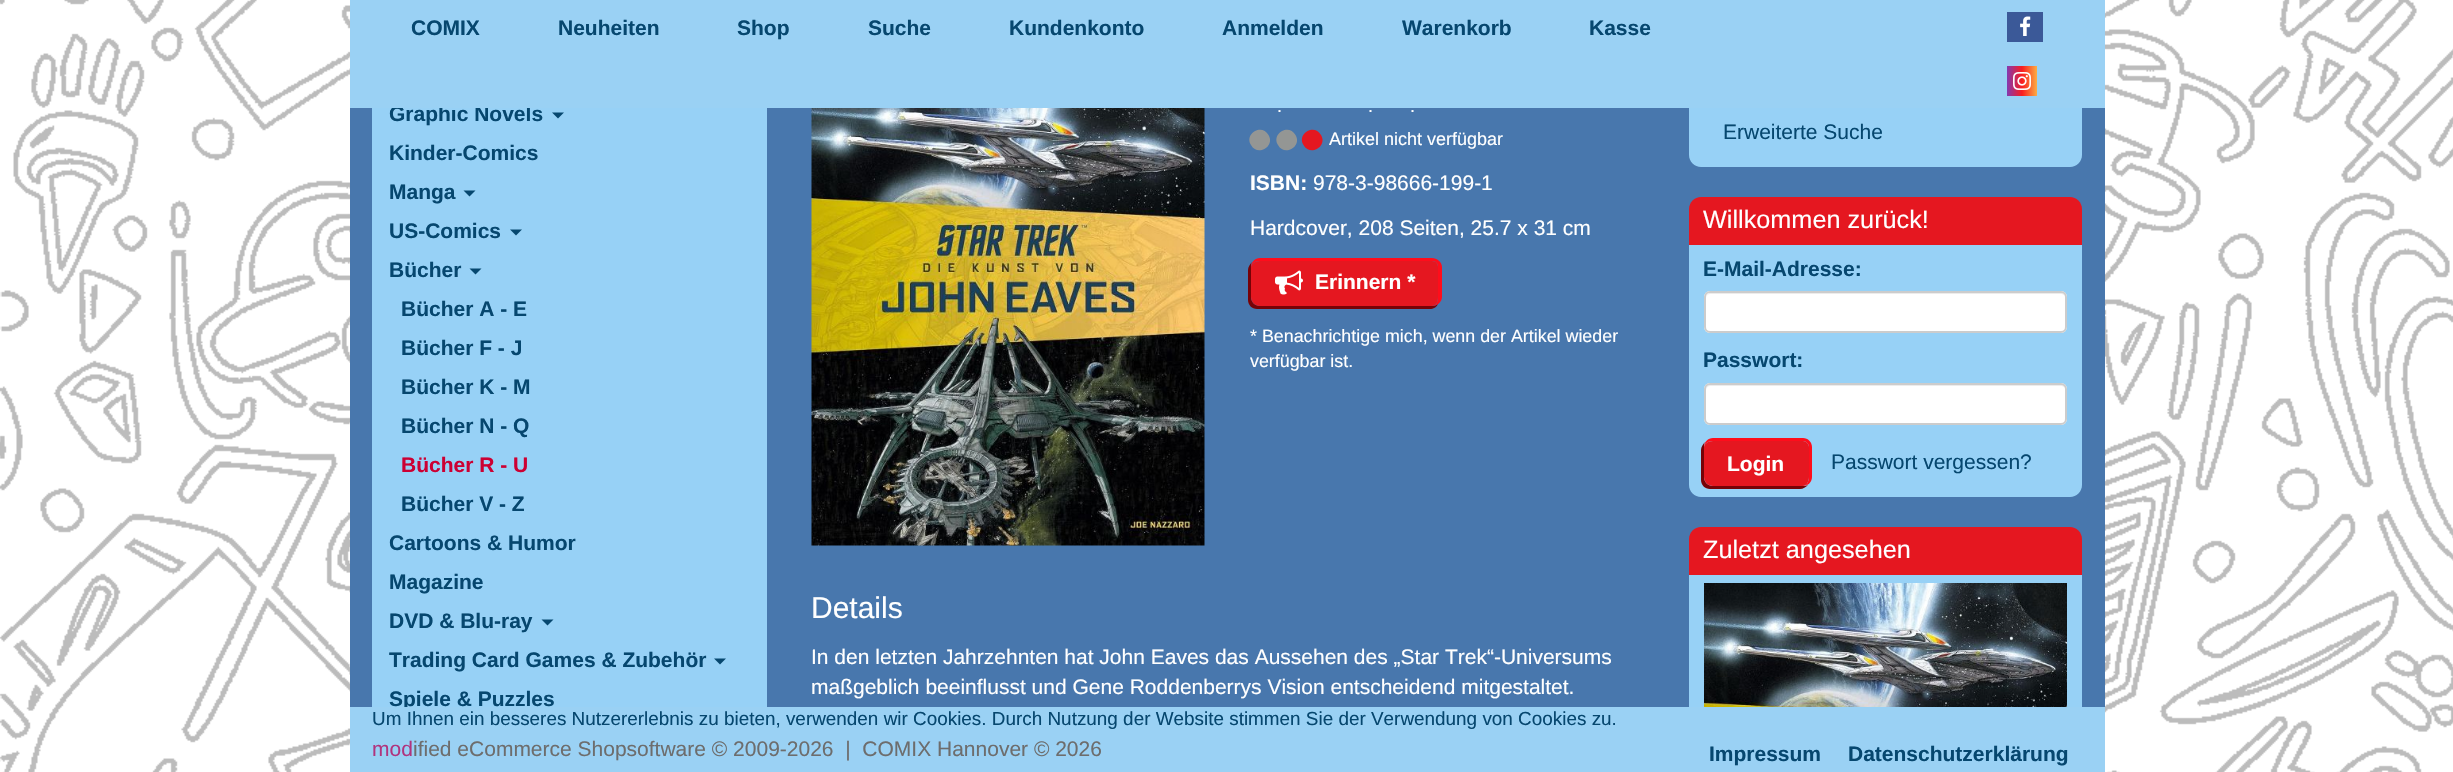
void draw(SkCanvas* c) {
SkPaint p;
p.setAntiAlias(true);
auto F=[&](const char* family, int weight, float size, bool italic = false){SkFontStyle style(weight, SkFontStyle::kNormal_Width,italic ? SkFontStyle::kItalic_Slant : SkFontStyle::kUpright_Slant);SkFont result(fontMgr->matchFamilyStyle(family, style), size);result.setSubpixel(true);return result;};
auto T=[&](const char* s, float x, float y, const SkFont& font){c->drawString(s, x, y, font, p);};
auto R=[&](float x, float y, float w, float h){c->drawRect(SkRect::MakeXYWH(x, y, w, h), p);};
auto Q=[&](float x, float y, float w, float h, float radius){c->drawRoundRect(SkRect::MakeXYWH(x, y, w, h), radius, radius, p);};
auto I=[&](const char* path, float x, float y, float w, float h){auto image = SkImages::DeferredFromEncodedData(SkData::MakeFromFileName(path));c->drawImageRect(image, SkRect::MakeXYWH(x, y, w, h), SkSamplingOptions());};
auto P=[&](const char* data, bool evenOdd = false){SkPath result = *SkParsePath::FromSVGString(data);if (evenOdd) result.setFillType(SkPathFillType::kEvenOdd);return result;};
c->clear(0xffffffff);
I("1.png",0,0,2453,772);
p.setColor(0xff4877ad);
R(350,108,1755,599);
p.setColor(0xff97d1f6);
R(372,108,395,599);
auto f1 = F("Liberation Sans",700,21);
p.setColor(0xff06476f);
T("Graphic Novels",389,121,f1);
p.setColor(0xff97d1f6);
c->drawPath(P("M1689 56h393v99c0 6.5-5.5 12-12 12h-369c-6.5 0-12-5.5-12-12z"),p);
p.setColor(0xff9ad1f4);
R(350,0,1755,108);
p.setColor(0xff06476f);
T("COMIX",411,35,f1);
T("Neuheiten",558,35,f1);
T("Shop",737,35,f1);
T("Suche",868,35,f1);
T("Kundenkonto",1009,35,f1);
T("Anmelden",1222,35,f1);
T("Warenkorb",1402,35,f1);
T("Kasse",1589,35,f1);
p.setColor(0xff3b5998);
R(2007,12,36,30);
I("2.png",2020,16,11,20);
{
const SkColor colors[] = {0xff8439b1,0xfffa1d1f,0xfffcad44};
const float stops[] = {0,.5,1};
const SkPoint ends[] = {{2007,81}, {2037,81}};
p.setShader(SkGradientShader::MakeLinear(ends, colors, stops, 3, SkTileMode::kClamp));
p.setAlpha(255);
}
R(2007,66,30,30);
I("3.png",2013,72,18,18);
p.setShader(nullptr);
p.setColor(0xff06476f);
c->drawPath(P("M552 112.5h12l-6 6z"),p);
T("Kinder-Comics",389,160,f1);
T("Manga",389,199,f1);
c->drawPath(P("M463.5 190.5h12l-6 6z"),p);
T("US-Comics",389,238,f1);
c->drawPath(P("M510 229.5h12l-6 6z"),p);
T("Bücher",389,277,f1);
c->drawPath(P("M469.5 268.5h12l-6 6z"),p);
T("Bücher A - E",401,316,f1);
T("Bücher F - J",401,355,f1);
T("Bücher K - M",401,394,f1);
T("Bücher N - Q",401,433,f1);
p.setColor(0xffcc0033);
T("Bücher R - U",401,472,f1);
p.setColor(0xff06476f);
T("Bücher V - Z",401,511,f1);
T("Cartoons & Humor",389,550,f1);
T("Magazine",389,589,f1);
T("DVD & Blu-ray",389,628,f1);
c->drawPath(P("M541.5 619.5h12l-6 6z"),p);
T("Trading Card Games & Zubehör",389,667,f1);
c->drawPath(P("M714 658.5h12l-6 6z"),p);
T("Spiele & Puzzles",389,706,f1);
I("4.png",811,108,394,438);
auto f2 = F("Liberation Sans",400,18);
p.setColor(0xffffffff);
T(".",1277,112,f2);
T(".",1368,112,f2);
T(".",1410,112,f2);
p.setColor(0xff949694);
c->drawPath(P("M1268.5 135c7 11.5-11 22-17.5 10c-7-11.5 11-22 17.5-10zm27 0c7 11.5-11 22-17.5 10c-7-11.5 11-22 17.5-10z"),p);
p.setColor(0xffe51720);
c->drawPath(P("M1321 135c7 11.5-11 22-17.5 10c-7-11.5 11-22 17.5-10z"),p);
p.setColor(0xffffffff);
T("Artikel nicht verfügbar",1329,145,f2);
T("ISBN:",1250,190,f1);
auto f3 = F("Liberation Sans",400,21);
T("978-3-98666-199-1",1313,190,f3);
T("Hardcover, 208 Seiten, 25.7 x 31 cm",1250,235,f3);
p.setColor(0xff770207);
c->drawPath(P("M1252 262c-2 2-4 5-4 8v30c0 5 4 9 9 9h173c3 0 7-2 8-5c-2 1-3 2-6 2h-172c-5 0-9-4-9-9v-30c0-2 0-3 1-5z"),p);
p.setColor(0xffe51720);
c->drawPath(P("M1260 261h172c4 0 6 3 6 6v30c0 5-2 9-6 9h-172c-5 0-9-4-9-9v-30c0-3 4-6 9-6z"),p);
p.setColor(0xffff0d1b);
c->drawPath(P("M1260 258h172c5 0 10 4 10 9v30c0 5-5 9-10 9h-172c-5 0-9-4-9-9v-30c0-5 4-9 9-9zm0 3h172c4 0 6 3 6 6v30c0 5-2 9-6 9h-172c-5 0-9-4-9-9v-30c0-3 4-6 9-6z",true),p);
I("5.png",1275,270,28,25);
p.setColor(0xffffffff);
T("Erinnern *",1315,289,f1);
auto f4 = F("Liberation Sans",400,17.85);
T("* Benachrichtige mich, wenn der Artikel wieder",1250,342,f4);
T("verfügbar ist.",1250,367,f4);
auto f5 = F("Liberation Sans",400,30);
T("Details",811,618,f5);
T("In den letzten Jahrzehnten hat John Eaves das Aussehen des „Star Trek“-Universums",811,664,f3);
T("maßgeblich beeinflusst und Gene Roddenberrys Vision entscheidend mitgestaltet.",811,694,f3);
p.setColor(0xff06476f);
T("Erweiterte Suche",1723,139,f3);
p.setColor(0xffe51720);
c->drawPath(P("M1701 197h369c6.5 0 12 5.5 12 12v36h-393v-36c0-6.5 5.5-12 12-12z"),p);
auto f6 = F("Liberation Sans",400,25.25);
p.setColor(0xffffffff);
T("Willkommen zurück!",1703,228,f6);
p.setColor(0xff97d1f6);
c->drawPath(P("M1689 245h393v240c0 6.5-5.5 12-12 12h-369c-6.5 0-12-5.5-12-12z"),p);
p.setColor(0xff06476f);
T("E-Mail-Adresse:",1703,276,f1);
p.setColor(0xffffffff);
Q(1704,291,363,42,6);
p.setColor(0xffececec);
c->drawPath(P("M1710 294h351c2 0 5 2 5 4c0-3-2-5-5-5h-350c-3 0-5 2-5 5c0-2 2-4 4-4z"),p);
p.setStroke(true);
p.setStrokeWidth(2);
p.setColor(0xffcccccc);
c->drawRoundRect(SkRect::MakeXYWH(1705,292,361,40),5,5,p);
p.setStroke(false);
p.setColor(0xff06476f);
T("Passwort:",1703,367,f1);
p.setColor(0xffffffff);
Q(1704,383,363,42,6);
p.setColor(0xffececec);
c->drawPath(P("M1710 386h351c2 0 5 2 5 4v-1c0-3-2-5-5-5h-350c-3 0-5 2-5 5v1c0-2 2-4 4-4z"),p);
p.setStroke(true);
p.setColor(0xffcccccc);
c->drawRoundRect(SkRect::MakeXYWH(1705,384,361,40),5,5,p);
p.setStroke(false);
p.setColor(0xff770207);
c->drawPath(P("M1705 442c-2 2-4 5-4 8v30c0 5 4 9 9 9h90c3 0 6-2 8-4c-2 1-3 1-5 1h-90c-5 0-9-4-9-9v-30c0-2 0-3 1-5z"),p);
p.setColor(0xffe51720);
c->drawPath(P("M1713 441h90c3 0 6 3 6 6v30c0 5-3 9-6 9h-90c-5 0-9-4-9-9v-30c0-3 4-6 9-6z"),p);
p.setColor(0xffff0d1b);
c->drawPath(P("M1713 438h90c5 0 9 4 9 9v30c0 5-4 9-9 9h-90c-5 0-9-4-9-9v-30c0-5 4-9 9-9zm0 3h90c3 0 6 3 6 6v30c0 5-3 9-6 9h-90c-5 0-9-4-9-9v-30c0-3 4-6 9-6z",true),p);
p.setColor(0xffffffff);
T("Login",1727,471,f1);
p.setColor(0xff06476f);
T("Passwort vergessen?",1831,469,f3);
p.setColor(0xffe51720);
c->drawPath(P("M1701 527h369c6.5 0 12 5.5 12 12v36h-393v-36c0-6.5 5.5-12 12-12z"),p);
p.setColor(0xffffffff);
T("Zuletzt angesehen",1703,558,f6);
p.setColor(0xff97d1f6);
R(1689,575,393,132);
I("6.png",1704,583,363,124);
p.setColor(0xff9ad1f4);
R(350,707,1755,65);
auto f7 = F("Liberation Sans",400,18.9);
p.setColor(0xff06476f);
T("Um Ihnen ein besseres Nutzererlebnis zu bieten, verwenden wir Cookies. Durch Nutzung der Website stimmen Sie der Verwendung von Cookies zu.",372,725,f7);
p.setColor(0xffb0347e);
T("mod",372,756,f3);
p.setColor(0xff6d6d6d);
T("ified eCommerce Shopsoftware © 2009-2026  |  COMIX Hannover © 2026",413,756,f3);
p.setColor(0xff06476f);
T("Impressum",1709,761,f1);
T("Datenschutzerklärung",1848,761,f1);
}
